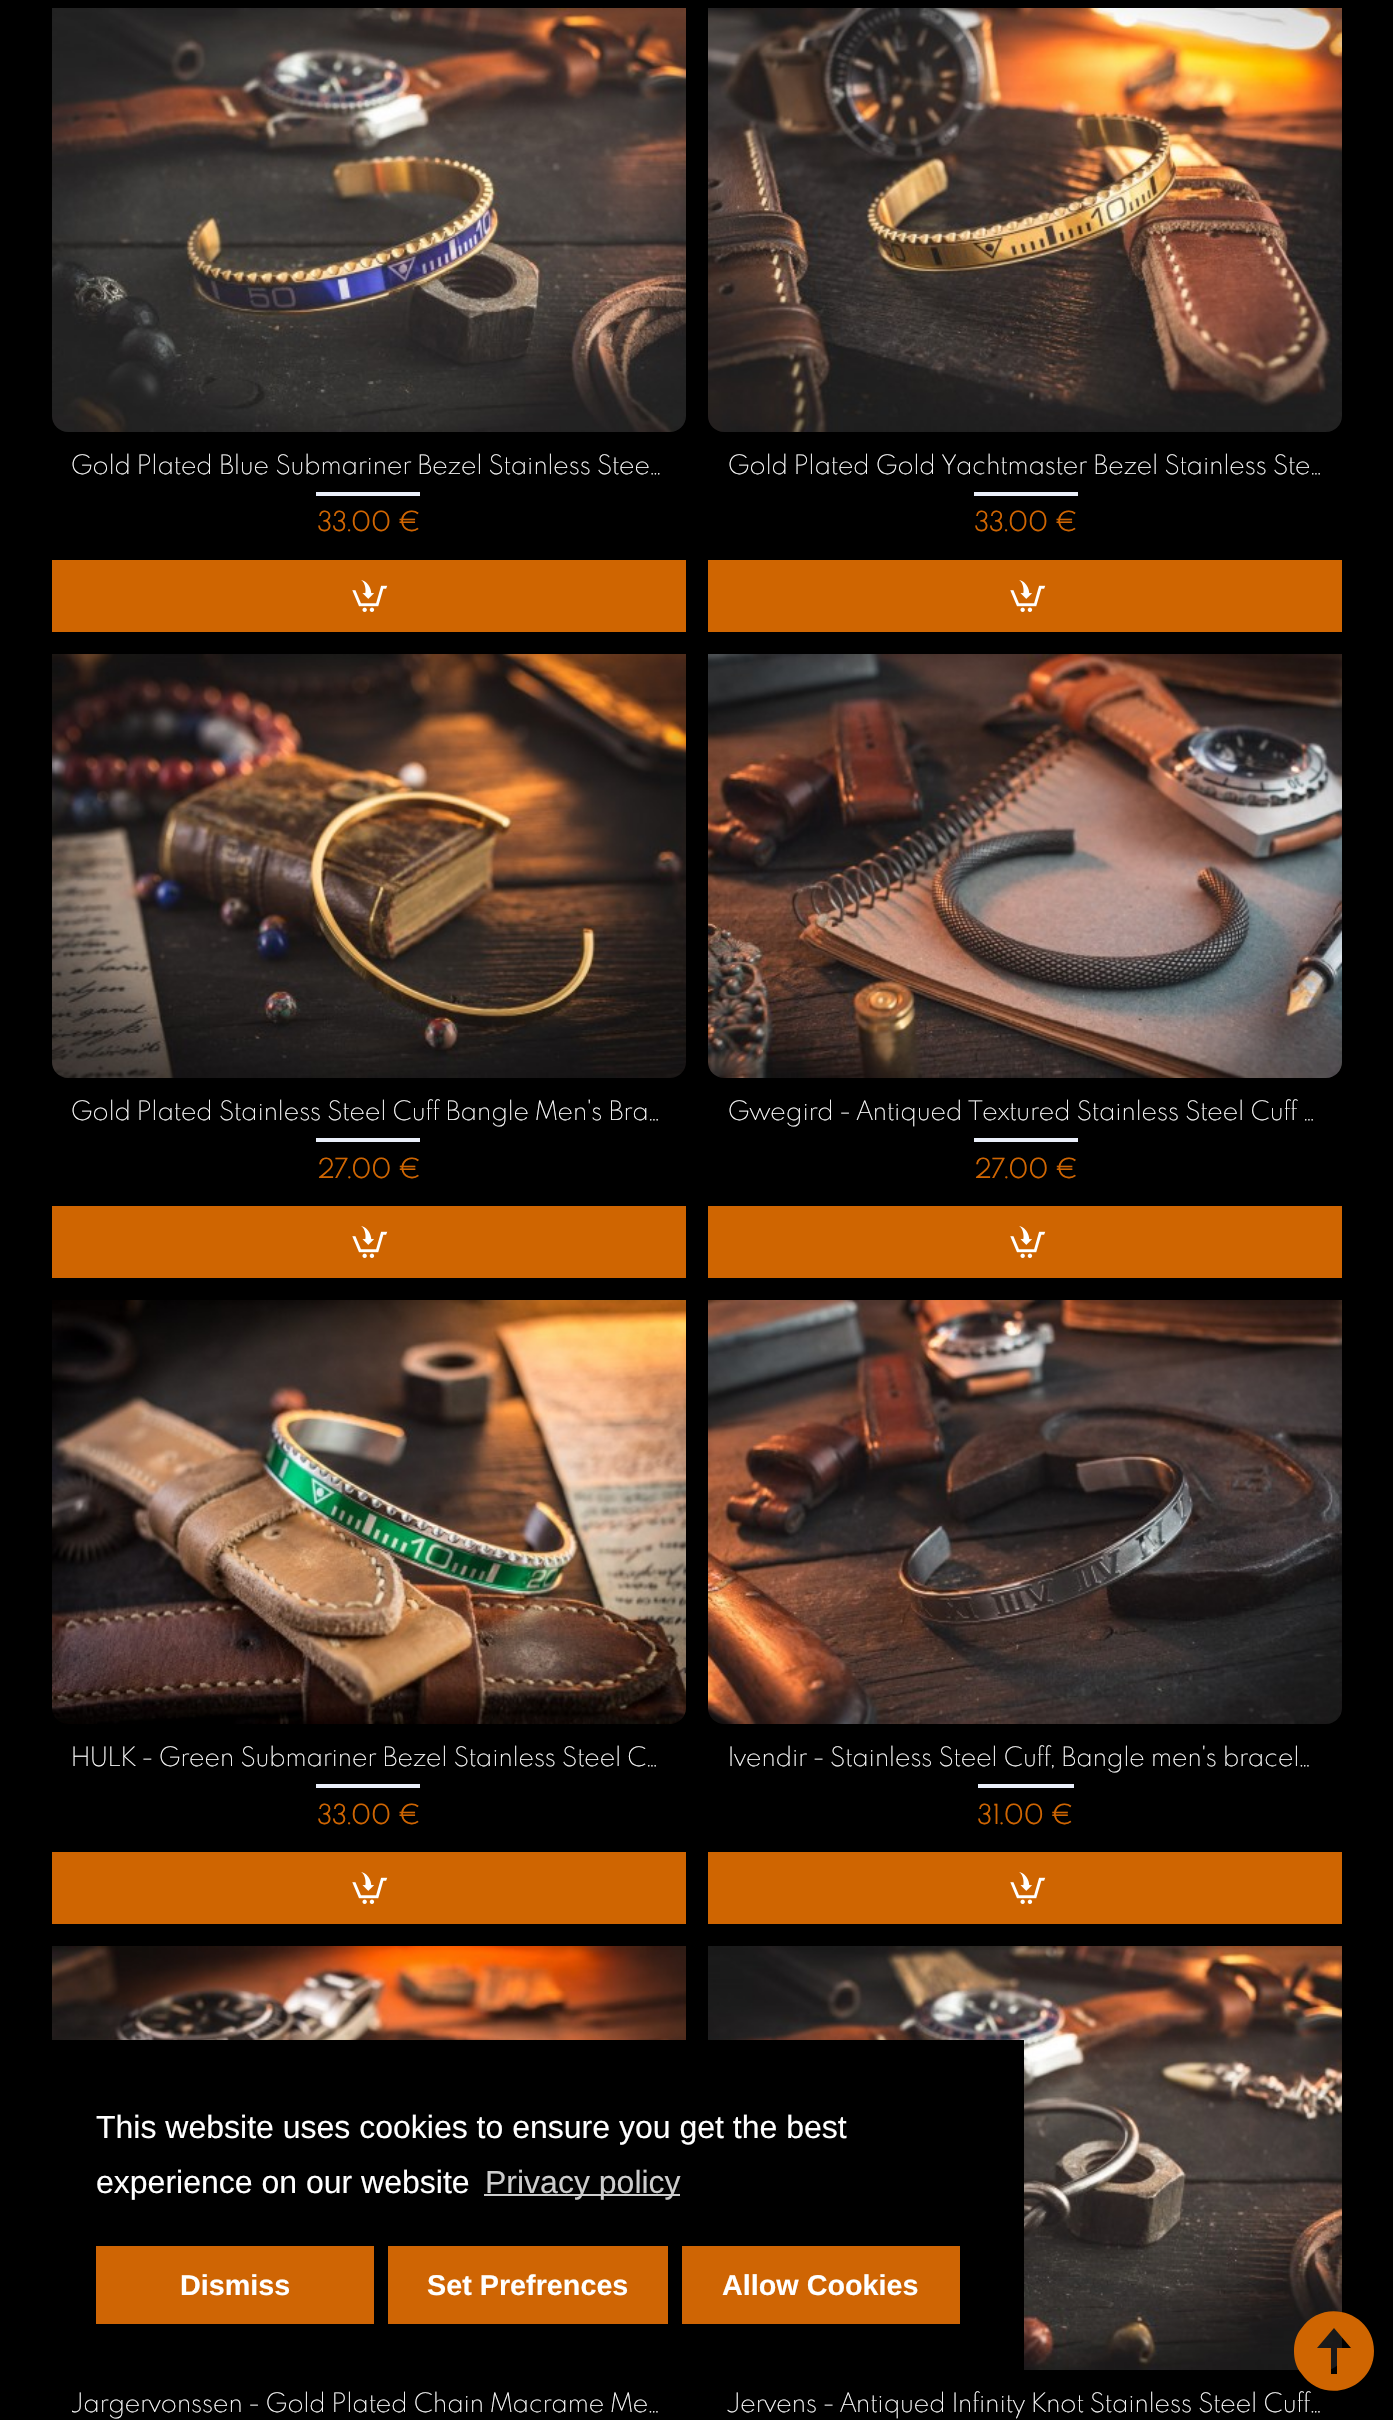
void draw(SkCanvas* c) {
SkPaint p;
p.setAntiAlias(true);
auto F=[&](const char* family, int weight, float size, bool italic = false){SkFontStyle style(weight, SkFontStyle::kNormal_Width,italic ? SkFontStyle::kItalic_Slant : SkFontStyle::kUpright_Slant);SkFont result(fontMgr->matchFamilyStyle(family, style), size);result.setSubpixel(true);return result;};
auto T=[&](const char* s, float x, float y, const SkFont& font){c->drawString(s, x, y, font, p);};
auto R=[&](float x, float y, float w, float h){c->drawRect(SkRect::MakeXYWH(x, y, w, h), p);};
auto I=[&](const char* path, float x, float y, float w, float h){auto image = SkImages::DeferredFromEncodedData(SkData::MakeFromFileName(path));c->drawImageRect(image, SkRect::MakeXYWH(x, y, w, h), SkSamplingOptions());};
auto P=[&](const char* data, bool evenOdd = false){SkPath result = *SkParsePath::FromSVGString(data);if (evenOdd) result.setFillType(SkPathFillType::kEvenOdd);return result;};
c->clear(0xff000000);
I("1.png",52,8,634,424);
auto f1 = F("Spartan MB",200,26);
p.setColor(0xffffffff);
T("Gold Plated Blue Submariner Bezel Stainless Stee…",71,474,f1);
p.setColor(0xffeaeffa);
R(316,492,104,4);
auto f2 = F("Spartan MB",700,26);
p.setColor(0xffcf6502);
T("33.00 €",317,531,f2);
p.setColor(0xffcf6501);
R(52,560,634,72);
I("2.png",352,580,36,32);
I("3.png",708,8,634,424);
p.setColor(0xffffffff);
T("Gold Plated Gold Yachtmaster Bezel Stainless Ste…",728,474,f1);
p.setColor(0xffeaeffa);
R(974,492,104,4);
p.setColor(0xffcf6502);
T("33.00 €",974,531,f2);
p.setColor(0xffcf6501);
R(708,560,634,72);
I("2.png",1010,580,36,32);
I("4.png",52,654,634,424);
p.setColor(0xffffffff);
T("Gold Plated Stainless Steel Cuff Bangle Men's Bra…",71,1120,f1);
p.setColor(0xffeaeffa);
R(316,1138,104,4);
p.setColor(0xffcf6502);
T("27.00 €",317,1178,f2);
p.setColor(0xffcf6501);
R(52,1206,634,72);
I("2.png",352,1226,36,32);
I("5.png",708,654,634,424);
p.setColor(0xffffffff);
T("Gwegird - Antiqued Textured Stainless Steel Cuff …",728,1120,f1);
p.setColor(0xffeaeffa);
R(974,1138,104,4);
p.setColor(0xffcf6502);
T("27.00 €",974,1178,f2);
p.setColor(0xffcf6501);
R(708,1206,634,72);
I("2.png",1010,1226,36,32);
I("6.png",52,1300,634,424);
p.setColor(0xffffffff);
T("HULK - Green Submariner Bezel Stainless Steel C…",71,1766,f1);
p.setColor(0xffeaeffa);
R(316,1784,104,4);
p.setColor(0xffcf6502);
T("33.00 €",317,1824,f2);
p.setColor(0xffcf6501);
R(52,1852,634,72);
I("2.png",352,1872,36,32);
I("7.png",708,1300,634,424);
p.setColor(0xffffffff);
T("Ivendir - Stainless Steel Cuff, Bangle men's bracel…",728,1766,f1);
p.setColor(0xffeaeffa);
R(978,1784,96,4);
p.setColor(0xffcf6502);
T("31.00 €",977,1824,f2);
p.setColor(0xffcf6501);
R(708,1852,634,72);
I("2.png",1010,1872,36,32);
I("8.png",52,1946,634,94);
c->save();
c->clipRect(SkRect::MakeXYWH(72,2390,594,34));
p.setColor(0xffffffff);
T("Jargervonssen - Gold Plated Chain Macrame Me…",71,2412,f1);
c->restore();
I("9.png",708,1946,634,424);
T("Jervens - Antiqued Infinity Knot Stainless Steel Cuff…",728,2412,f1);
p.setColor(0xff000000);
R(708,2040,316,330);
auto f3 = F("Liberation Sans",400,32);
p.setColor(0xffffffff);
T("This website uses cookies to ensure you get the best",96,2138,f3);
T("experience on our website",96,2193,f3);
p.setColor(0xffcccccc);
R(484,2194,196,2);
T("Privacy policy",485,2193,f3);
p.setColor(0xffcf6504);
R(96,2246,278,78);
auto f4 = F("Liberation Sans",700,28.75);
p.setColor(0xffffffff);
T("Dismiss",180,2295,f4);
p.setColor(0xffcf6504);
R(388,2246,280,78);
p.setColor(0xffffffff);
T("Set Prefrences",427,2295,f4);
p.setColor(0xffcf6504);
R(682,2246,278,78);
p.setColor(0xffffffff);
T("Allow Cookies",722,2295,f4);
p.setColor(0xffcf6501);
c->drawPath(P("M1294 2351c0 8 2 16 7 22c22 33 73 17 73-22c0-39-51-55-73-22c-5 6-7 14-7 22zm57-3h-14v26h-6v-26h-14l17-20z"),p);
}
